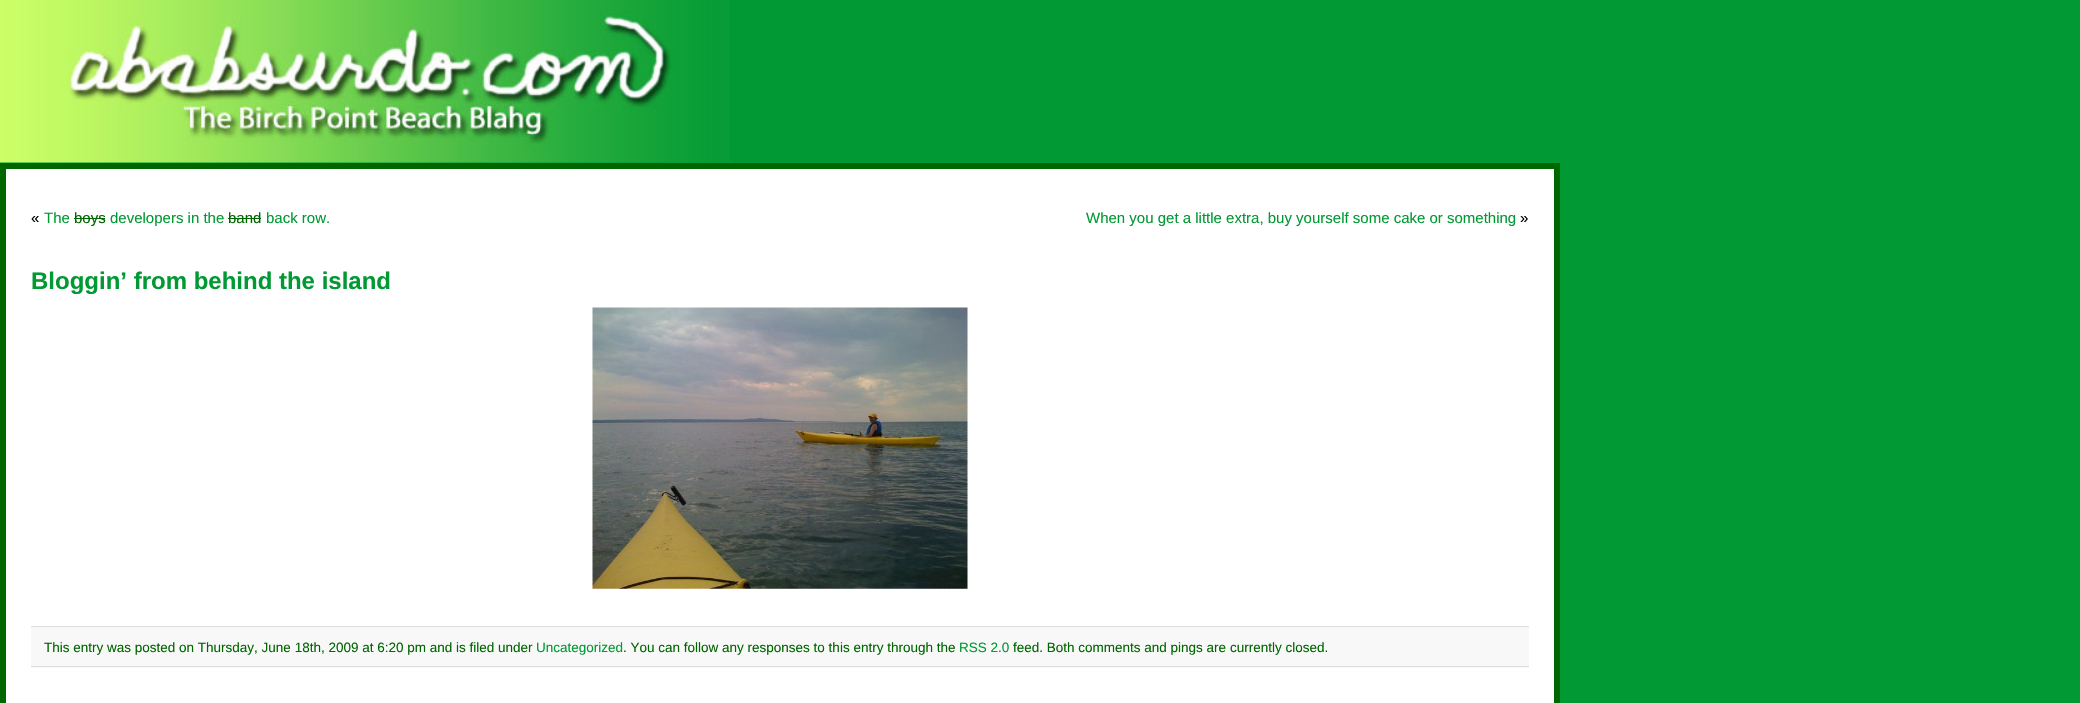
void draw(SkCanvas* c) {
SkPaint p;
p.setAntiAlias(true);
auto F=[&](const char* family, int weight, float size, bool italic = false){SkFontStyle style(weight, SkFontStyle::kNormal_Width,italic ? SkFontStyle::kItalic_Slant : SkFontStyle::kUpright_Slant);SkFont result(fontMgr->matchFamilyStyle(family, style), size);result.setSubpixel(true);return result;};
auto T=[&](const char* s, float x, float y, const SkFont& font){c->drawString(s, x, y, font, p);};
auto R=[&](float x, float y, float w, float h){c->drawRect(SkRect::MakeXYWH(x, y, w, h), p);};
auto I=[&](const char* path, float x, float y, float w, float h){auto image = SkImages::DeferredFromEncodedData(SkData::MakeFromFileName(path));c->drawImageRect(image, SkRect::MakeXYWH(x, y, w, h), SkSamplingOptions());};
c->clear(0xff009933);
I("1.png",0,0,730,163);
p.setColor(0xffffffff);
c->drawRect(SkRect::MakeXYWH(3,166,1554,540),p);
p.setStroke(true);
p.setStrokeWidth(6);
p.setColor(0xff006600);
c->drawRect(SkRect::MakeXYWH(3,166,1554,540),p);
auto f1 = F("Liberation Sans",400,15);
p.setStroke(false);
p.setColor(0xff000000);
T("«",31,223,f1);
p.setColor(0xff009933);
T("The",44,223,f1);
p.setColor(0xff006600);
T("boys",74,223,f1);
R(74,218,31,1);
p.setColor(0xff009933);
T("developers in the",110,223,f1);
p.setColor(0xff006600);
T("band",228,223,f1);
R(228,218,33,1);
p.setColor(0xff009933);
T("back row.",266,223,f1);
T("When you get a little extra, buy yourself some cake or something",1086,223,f1);
p.setColor(0xff000000);
T("»",1520,223,f1);
auto f2 = F("Liberation Sans",700,24);
p.setColor(0xff009933);
T("Bloggin’ from behind the island",31,289,f2);
I("2.png",592,307,376,282);
p.setColor(0xfff8f8f8);
R(31,627,1498,41);
p.setColor(0xffdddddd);
R(31,626,1498,1);
R(31,666,1498,1);
auto f3 = F("Liberation Sans",400,13.5);
p.setColor(0xff006600);
T("This entry was posted on Thursday, June 18th, 2009 at 6:20 pm and is filed under",44,652,f3);
p.setColor(0xff009933);
T("Uncategorized",536,652,f3);
p.setColor(0xff006600);
T(". You can follow any responses to this entry through the",623,652,f3);
p.setColor(0xff009933);
T("RSS 2.0",959,652,f3);
p.setColor(0xff006600);
T("feed. Both comments and pings are currently closed.",1013,652,f3);
}
